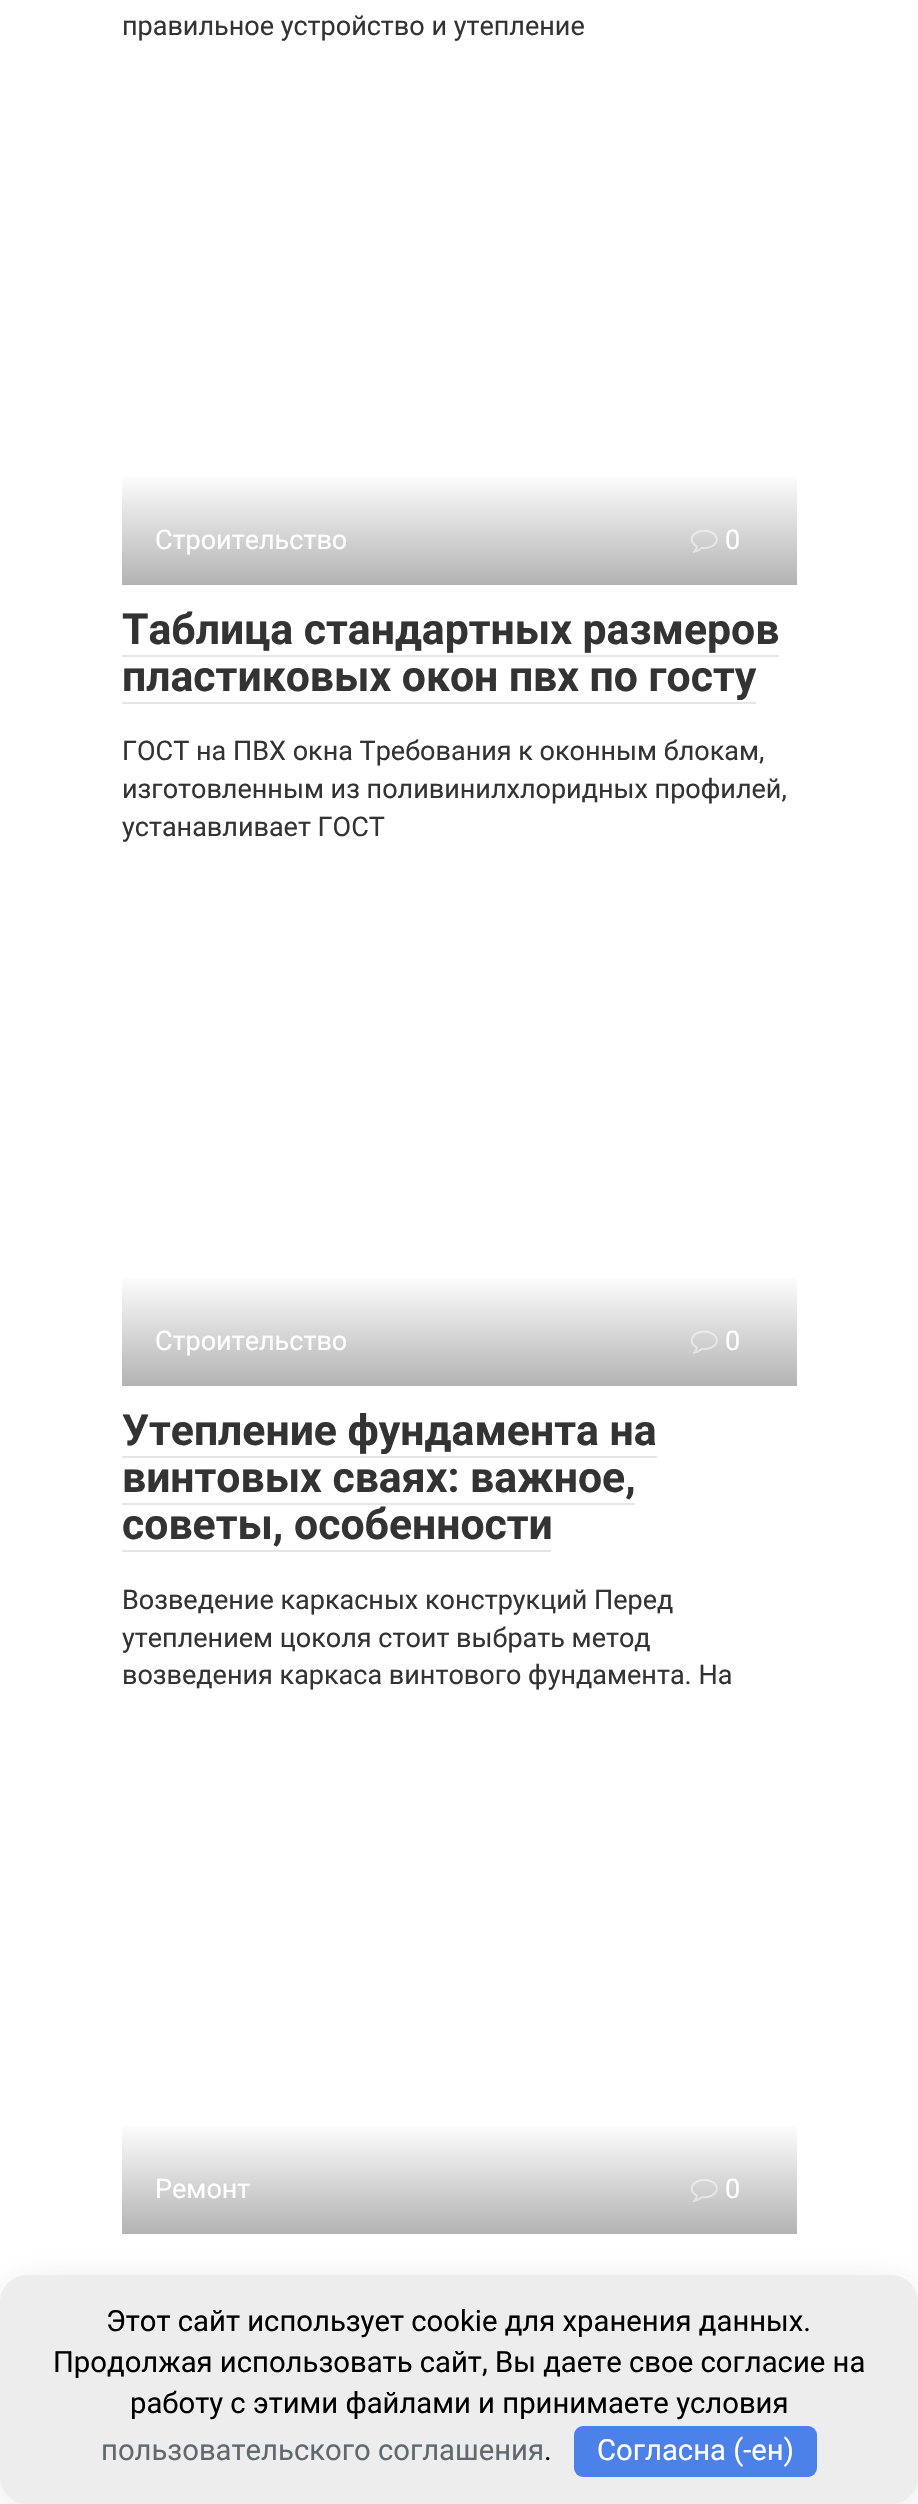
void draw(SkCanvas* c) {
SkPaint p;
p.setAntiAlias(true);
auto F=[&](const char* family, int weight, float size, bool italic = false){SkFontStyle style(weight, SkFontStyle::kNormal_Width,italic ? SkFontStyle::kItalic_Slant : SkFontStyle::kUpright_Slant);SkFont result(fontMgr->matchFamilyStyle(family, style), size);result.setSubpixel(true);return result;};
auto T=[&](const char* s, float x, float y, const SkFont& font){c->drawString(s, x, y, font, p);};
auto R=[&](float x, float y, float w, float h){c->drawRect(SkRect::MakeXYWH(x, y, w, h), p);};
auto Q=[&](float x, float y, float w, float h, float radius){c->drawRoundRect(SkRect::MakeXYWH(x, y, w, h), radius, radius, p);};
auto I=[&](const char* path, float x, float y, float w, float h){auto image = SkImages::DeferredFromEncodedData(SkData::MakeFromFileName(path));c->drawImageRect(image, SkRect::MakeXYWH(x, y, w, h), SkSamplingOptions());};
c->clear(0xffffffff);
auto f1 = F("Roboto",400,27);
p.setColor(0xff333333);
T("правильное устройство и утепление",122,35,f1);
{
const SkColor colors[] = {0xffffffff,0xffb3b3b3};
const float stops[] = {0,1};
const SkPoint ends[] = {{459,472}, {459,585}};
p.setShader(SkGradientShader::MakeLinear(ends, colors, stops, 2, SkTileMode::kClamp));
p.setAlpha(255);
}
R(122,476,675,109);
p.setShader(nullptr);
p.setColor(0xffffffff);
T("Строительство",155,549,f1);
I("1.png",690,529,28,24);
T("0",725,549,f1);
auto f2 = F("Roboto",700,42.75);
p.setColor(0xff333333);
T("Таблица стандартных размеров",122,644,f2);
p.setColor(0xffe6e6e6);
R(122,655,657,2);
p.setColor(0xff333333);
T("пластиковых окон пвх по госту",122,691,f2);
p.setColor(0xffe6e6e6);
R(122,702,634,2);
p.setColor(0xff333333);
T("ГОСТ на ПВХ окна Требования к оконным блокам,",122,760,f1);
T("изготовленным из поливинилхлоридных профилей,",122,798,f1);
T("устанавливает ГОСТ",122,836,f1);
{
const SkColor colors[] = {0xffffffff,0xffb3b3b3};
const float stops[] = {0,1};
const SkPoint ends[] = {{459,1274}, {459,1386}};
p.setShader(SkGradientShader::MakeLinear(ends, colors, stops, 2, SkTileMode::kClamp));
p.setAlpha(255);
}
R(122,1278,675,108);
p.setShader(nullptr);
p.setColor(0xffffffff);
T("Строительство",155,1350,f1);
I("2.png",690,1330,28,24);
T("0",725,1350,f1);
p.setColor(0xff333333);
T("Утепление фундамента на",122,1445,f2);
p.setColor(0xffe6e6e6);
R(122,1456,535,2);
p.setColor(0xff333333);
T("винтовых сваях: важное,",122,1492,f2);
p.setColor(0xffe6e6e6);
R(122,1503,513,2);
p.setColor(0xff333333);
T("советы, особенности",122,1539,f2);
p.setColor(0xffe6e6e6);
R(122,1550,429,2);
p.setColor(0xff333333);
T("Возведение каркасных конструкций Перед",122,1609,f1);
T("утеплением цоколя стоит выбрать метод",122,1647,f1);
T("возведения каркаса винтового фундамента. На",122,1684,f1);
{
const SkColor colors[] = {0xffffffff,0xffb3b3b3};
const float stops[] = {0,1};
const SkPoint ends[] = {{459,2122}, {459,2234}};
p.setShader(SkGradientShader::MakeLinear(ends, colors, stops, 2, SkTileMode::kClamp));
p.setAlpha(255);
}
R(122,2126,675,108);
p.setShader(nullptr);
p.setColor(0xffffffff);
T("Ремонт",155,2198,f1);
I("3.png",690,2179,28,23);
T("0",725,2198,f1);
p.setColor(0x33292c38);
p.setMaskFilter(SkMaskFilter::MakeBlur(kNormal_SkBlurStyle, 22.5));
c->drawRoundRect(SkRect::MakeXYWH(11,2293,896,207),16,16,p);
p.setMaskFilter(nullptr);
p.setColor(0xffededed);
Q(0,2275,918,229,27);
auto f3 = F("Roboto",400,29.25);
p.setColor(0xff000000);
T("Этот сайт использует cookie для хранения данных.",106,2331,f3);
T("Продолжая использовать сайт, Вы даете свое согласие на",53,2372,f3);
T("работу с этими файлами и принимаете условия",130,2413,f3);
p.setColor(0xff60696d);
T("пользовательского соглашения",101,2460,f3);
p.setColor(0xff000000);
T(".",544,2460,f3);
p.setColor(0xff4b81e8);
Q(574,2426,243,51,9);
p.setColor(0xffffffff);
T("Согласна (-ен)",597,2460,f3);
}
